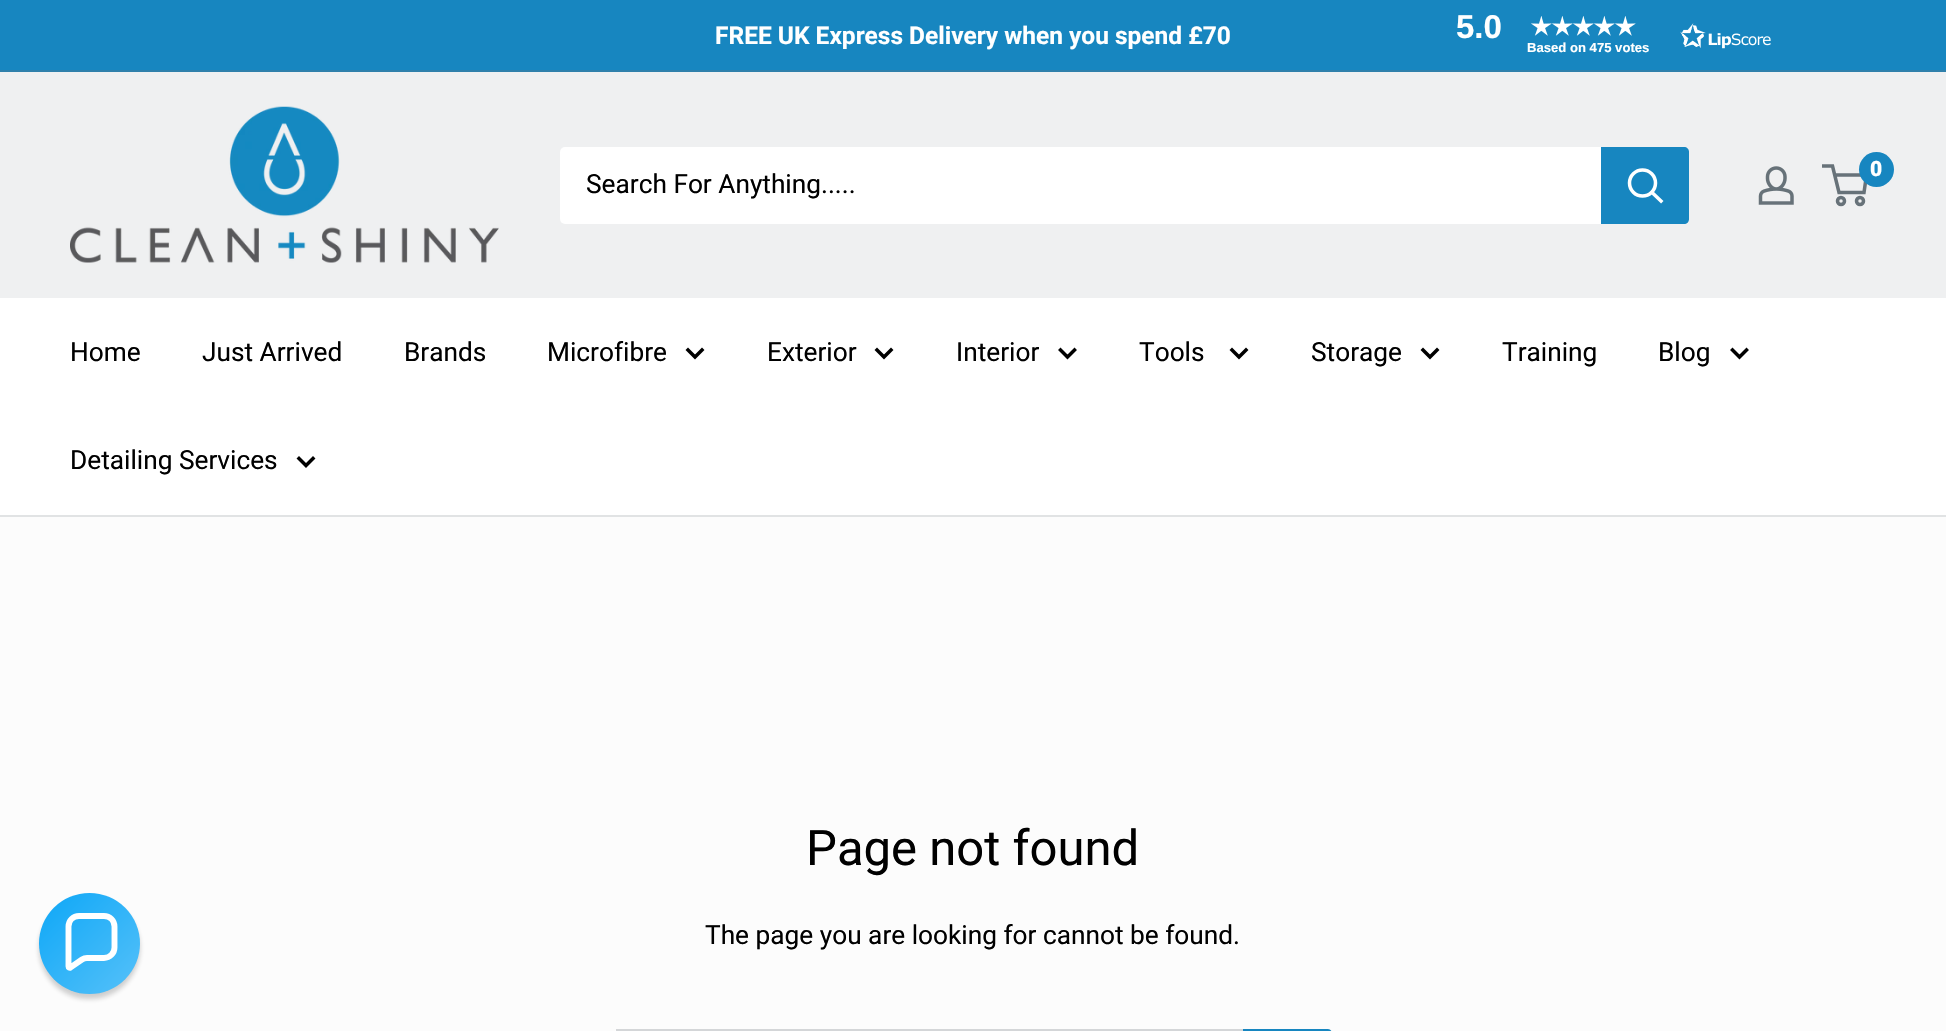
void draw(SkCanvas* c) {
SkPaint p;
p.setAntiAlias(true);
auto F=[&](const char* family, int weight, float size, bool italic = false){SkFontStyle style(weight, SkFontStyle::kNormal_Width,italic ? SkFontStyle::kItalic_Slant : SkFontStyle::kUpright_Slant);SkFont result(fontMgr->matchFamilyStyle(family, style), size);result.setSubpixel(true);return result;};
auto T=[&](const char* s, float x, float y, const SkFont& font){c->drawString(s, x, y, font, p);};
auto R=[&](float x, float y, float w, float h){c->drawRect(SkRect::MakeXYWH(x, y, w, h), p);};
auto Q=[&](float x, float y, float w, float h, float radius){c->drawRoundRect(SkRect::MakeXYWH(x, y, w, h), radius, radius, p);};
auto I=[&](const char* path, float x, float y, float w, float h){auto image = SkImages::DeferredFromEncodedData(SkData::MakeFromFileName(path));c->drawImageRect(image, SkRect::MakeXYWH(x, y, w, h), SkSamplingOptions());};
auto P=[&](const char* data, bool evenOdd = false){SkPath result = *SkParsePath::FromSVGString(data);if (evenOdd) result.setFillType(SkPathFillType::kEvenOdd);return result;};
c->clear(0xfffcfcfc);
p.setColor(0xff1786c0);
R(0,0,1946,70);
p.setColor(0xff2f80ab);
R(0,70,1946,2);
auto f1 = F("Roboto",700,24.5);
p.setColor(0xffffffff);
T("FREE UK Express Delivery when you spend £70",715,44,f1);
auto f2 = F("Liberation Sans",700,33);
T("5.0",1456,38,f2);
I("1.png",1531,16,240,33);
auto f3 = F("Liberation Sans",700,13.1);
T("Based on 475 votes",1527,52,f3);
p.setColor(0xffeff0f1);
R(0,72,1946,226);
I("2.png",70,106,429,157);
I("3.png",1758,166,36,39);
p.setStroke(true);
p.setStrokeWidth(3.5);
p.setColor(0xff677279);
c->drawCircle(1841,201,3.5,p);
c->drawCircle(1860,201,3.5,p);
c->drawPath(P("M1834.5 175h32l-2.5 17.5h-25l-6.5-26.5h-10.5"),p);
p.setStroke(false);
p.setColor(0xff1786c0);
c->drawCircle(1876.5,169.5,17.5,p);
auto f4 = F("Roboto",900,21);
p.setColor(0xffffffff);
T("0",1870,176,f4);
Q(560,147,1129,77,5);
auto f5 = F("Roboto",400,26.25);
p.setColor(0xff000000);
T("Search For Anything.....",586,193,f5);
p.setColor(0xff1786c0);
c->drawPath(P("M1601 147h83c3 0 5 2 5 5v67c0 3-2 5-5 5h-83z"),p);
p.setStroke(true);
p.setStrokeCap(SkPaint::kSquare_Cap);
p.setColor(0xffffffff);
c->drawPath(P("M1661 201l-9-8.5"),p);
p.setStrokeCap(SkPaint::kButt_Cap);
c->drawCircle(1642.5,183,13,p);
p.setStroke(false);
R(0,298,1946,217);
p.setColor(0xffe1e3e4);
R(0,515,1946,2);
p.setColor(0xff000000);
T("Home",70,361,f5);
T("Just Arrived",202,361,f5);
T("Brands",404,361,f5);
T("Microfibre",547,361,f5);
p.setStroke(true);
p.setStrokeCap(SkPaint::kSquare_Cap);
c->drawPath(P("M702 350l-7 7l-7-7"),p);
p.setStroke(false);
T("Exterior",767,361,f5);
p.setStroke(true);
c->drawPath(P("M891 350l-7 7l-7-7"),p);
p.setStroke(false);
T("Interior",956,361,f5);
p.setStroke(true);
c->drawPath(P("M1074.5 350l-7 7l-7-7"),p);
p.setStroke(false);
T("Tools",1139,361,f5);
p.setStroke(true);
c->drawPath(P("M1246 350l-7 7l-7-7"),p);
p.setStroke(false);
T("Storage",1311,361,f5);
p.setStroke(true);
c->drawPath(P("M1437 350l-7 7l-7-7"),p);
p.setStroke(false);
T("Training",1502,361,f5);
T("Blog",1658,361,f5);
p.setStroke(true);
c->drawPath(P("M1746.5 350l-7 7l-7-7"),p);
p.setStroke(false);
T("Detailing Services",70,469,f5);
p.setStroke(true);
c->drawPath(P("M313 458.5l-7 7l-7-7"),p);
p.setStroke(false);
p.setColor(0x330d0d0d);
p.setMaskFilter(SkMaskFilter::MakeBlur(kNormal_SkBlurStyle, 2.5));
c->drawRoundRect(SkRect::MakeXYWH(39,898,101,101),50.5,50.5,p);
p.setMaskFilter(nullptr);
{
const SkColor colors[] = {0xff0da7f7,0xff56c1f9};
const float stops[] = {0,1};
const SkPoint ends[] = {{38,893}, {140,994}};
p.setShader(SkGradientShader::MakeLinear(ends, colors, stops, 2, SkTileMode::kClamp));
p.setAlpha(255);
}
c->drawCircle(89.5,943.5,50.5,p);
p.setStroke(true);
p.setStrokeWidth(5.9);
p.setStrokeCap(SkPaint::kButt_Cap);
p.setShader(nullptr);
p.setColor(0xffffffff);
c->drawPath(P("M104 916h-25c-6 0-10.5 4.5-10.5 10.5v40c0 1 1 1.5 2 1l11.5-8c1.5-1 3-1.5 5-1.5h17c6 0 10.5-5 10.5-10.5v-21c0-6-4.5-10.5-10.5-10.5z"),p);
auto f6 = F("Roboto",400,49);
p.setStroke(false);
p.setColor(0xff000000);
T("Page not found",806,865,f6);
T("The page you are looking for cannot be found.",705,944,f5);
p.setColor(0xffffffff);
c->drawPath(P("M618 1029h625v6h-625c-2 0-4-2-4-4v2c0-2 2-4 4-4z"),p);
p.setColor(0xffd4d6d8);
R(616,1029,627,2);
p.setColor(0xff1786c0);
c->drawPath(P("M1243 1029h85c2 0 4 2 4 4v-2c0 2-2 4-4 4h-85z"),p);
}
